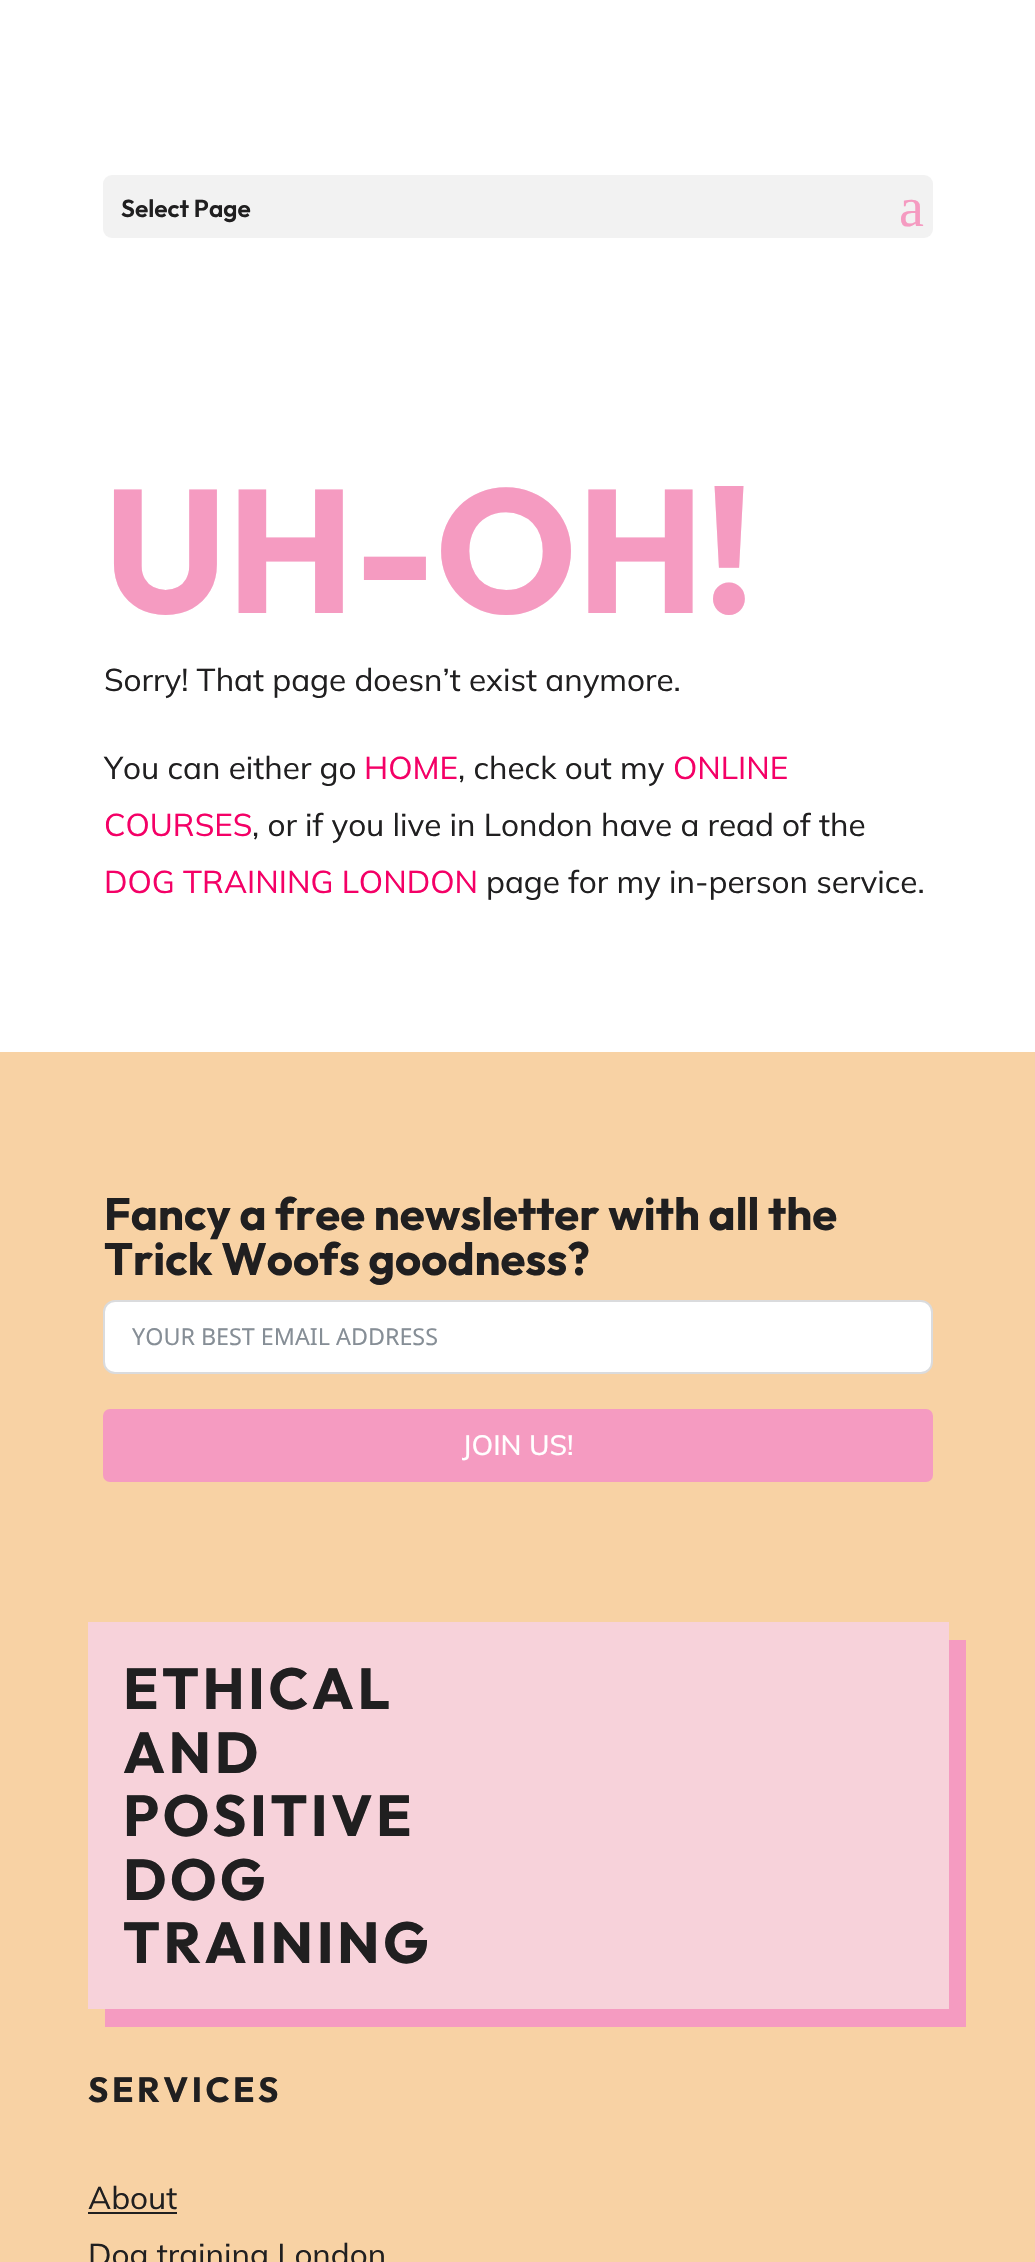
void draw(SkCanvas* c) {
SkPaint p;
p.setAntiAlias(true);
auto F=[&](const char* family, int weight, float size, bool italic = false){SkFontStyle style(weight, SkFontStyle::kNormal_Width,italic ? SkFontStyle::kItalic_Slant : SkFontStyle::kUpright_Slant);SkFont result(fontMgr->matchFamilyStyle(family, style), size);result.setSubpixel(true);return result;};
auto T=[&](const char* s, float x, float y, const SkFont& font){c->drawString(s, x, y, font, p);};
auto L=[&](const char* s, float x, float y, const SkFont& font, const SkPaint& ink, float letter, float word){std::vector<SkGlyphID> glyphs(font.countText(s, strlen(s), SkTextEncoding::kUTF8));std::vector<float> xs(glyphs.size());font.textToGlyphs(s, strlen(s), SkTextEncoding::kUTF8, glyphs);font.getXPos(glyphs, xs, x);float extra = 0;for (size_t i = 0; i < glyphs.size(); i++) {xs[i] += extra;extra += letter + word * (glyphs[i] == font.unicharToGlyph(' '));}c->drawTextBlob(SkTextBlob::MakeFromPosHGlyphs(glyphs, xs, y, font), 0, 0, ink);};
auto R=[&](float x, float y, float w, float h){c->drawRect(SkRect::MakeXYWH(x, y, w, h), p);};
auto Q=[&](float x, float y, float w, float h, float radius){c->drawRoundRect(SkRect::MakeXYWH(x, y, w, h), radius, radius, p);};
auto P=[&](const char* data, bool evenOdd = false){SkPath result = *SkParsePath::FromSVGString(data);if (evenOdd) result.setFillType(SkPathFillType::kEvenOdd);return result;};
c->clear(0xffffffff);
p.setColor(0xfff2f2f2);
Q(103,175,830,63,9);
auto f1 = F("Outfit",600,24.5);
p.setColor(0xff201f20);
T("Select Page",121,217,f1);
auto f2 = F("Liberation Serif",400,56);
p.setColor(0xfff59bc1);
T("a",899,226,f2);
auto f3 = F("Outfit",700,175);
T("UH-OH!",104,613,f3);
auto f4 = F("Mulish",400,31.5);
p.setColor(0xff201f20);
T("Sorry! That page doesn’t exist anymore.",104,691,f4);
T("You can either go",104,779,f4);
p.setColor(0xfff40066);
T("HOME",364,779,f4);
p.setColor(0xff201f20);
T(", check out my",458,779,f4);
p.setColor(0xfff40066);
T("ONLINE",673,779,f4);
T("COURSES",104,836,f4);
p.setColor(0xff201f20);
T(", or if you live in London have a read of the",252,836,f4);
p.setColor(0xfff40066);
T("DOG TRAINING LONDON",104,893,f4);
p.setColor(0xff201f20);
T("page for my in-person service.",486,893,f4);
p.setColor(0xfff8d2a4);
R(0,1052,1035,1210);
auto f5 = F("Outfit",700,45.5);
p.setColor(0xff201f20);
T("Fancy a free newsletter with all the",104,1230,f5);
T("Trick Woofs goodness?",104,1275,f5);
p.setColor(0xffffffff);
c->drawRoundRect(SkRect::MakeXYWH(104,1301,828,72),11,11,p);
p.setStroke(true);
p.setStrokeWidth(2);
p.setColor(0xffdadbdd);
c->drawRoundRect(SkRect::MakeXYWH(104,1301,828,72),11,11,p);
auto f6 = F("Noto Sans",400,23.3);
p.setStroke(false);
p.setColor(0xff868e96);
T("YOUR BEST EMAIL ADDRESS",132,1345,f6);
p.setColor(0xfff59bc1);
c->drawRoundRect(SkRect::MakeXYWH(104,1410,828,71),6,6,p);
p.setStroke(true);
c->drawRoundRect(SkRect::MakeXYWH(104,1410,828,71),6,6,p);
auto f7 = F("Mulish",500,28);
p.setStroke(false);
p.setColor(0xffffffff);
T("JOIN US!",462,1455,f7);
p.setColor(0xfff59bc1);
c->drawPath(P("M105 2009v18h861v-387h-18v369z"),p);
p.setColor(0xfff7d2da);
R(88,1622,861,387);
auto f8 = F("Outfit",700,57.75);
p.setColor(0xff201f20);
L("ETHICAL",123,1709,f8,p,3.5,0);
L("AND",123,1773,f8,p,3.5,0);
L("POSITIVE",123,1836,f8,p,3.5,0);
L("DOG",123,1900,f8,p,3.5,0);
L("TRAINING",123,1963,f8,p,3.5,0);
auto f9 = F("Outfit",700,35);
L("SERVICES",88,2102,f9,p,3.5,0);
T("About",88,2209,f4);
R(88,2212,89,2);
T("Dog training London",88,2266,f4);
}
